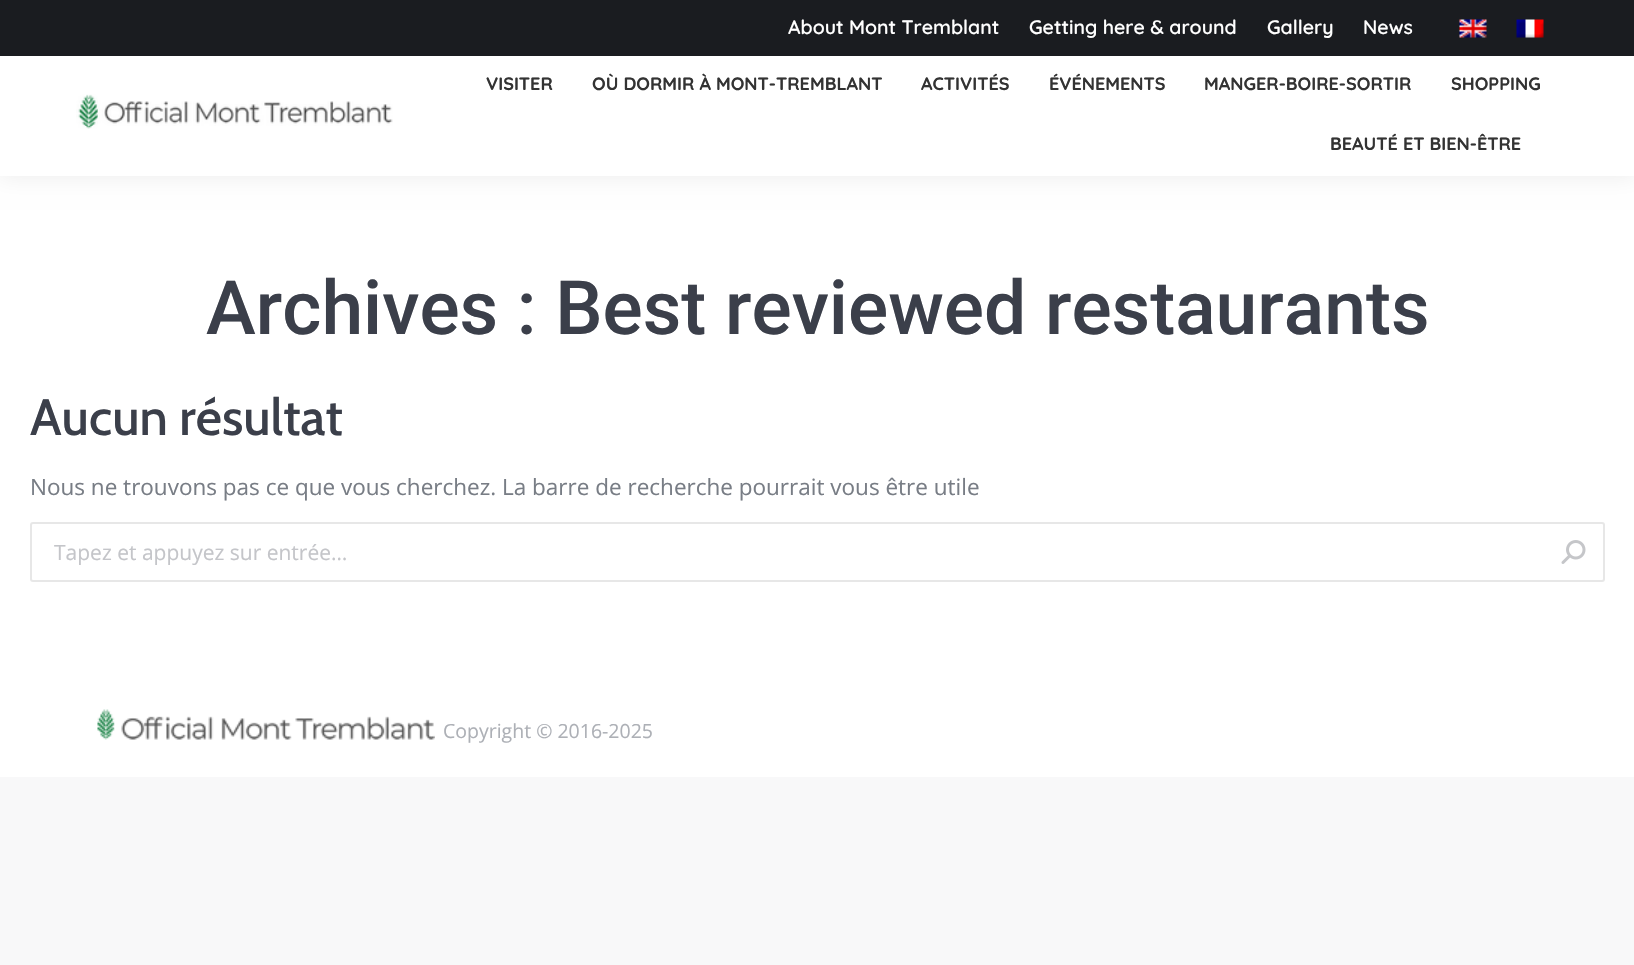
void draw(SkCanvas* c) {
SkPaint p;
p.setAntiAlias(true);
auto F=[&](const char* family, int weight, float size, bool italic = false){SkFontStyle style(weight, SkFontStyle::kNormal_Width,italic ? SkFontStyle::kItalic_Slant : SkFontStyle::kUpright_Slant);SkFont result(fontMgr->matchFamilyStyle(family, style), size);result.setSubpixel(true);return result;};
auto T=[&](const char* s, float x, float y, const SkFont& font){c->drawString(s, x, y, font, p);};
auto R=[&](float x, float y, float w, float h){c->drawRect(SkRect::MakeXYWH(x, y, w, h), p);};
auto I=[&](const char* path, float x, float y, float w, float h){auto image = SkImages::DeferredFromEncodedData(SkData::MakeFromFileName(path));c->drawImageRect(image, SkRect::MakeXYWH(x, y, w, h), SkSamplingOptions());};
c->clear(0xfff8f8f9);
p.setColor(0xffffffff);
R(0,176,1634,601);
p.setColor(0x12000000);
p.setMaskFilter(SkMaskFilter::MakeBlur(kNormal_SkBlurStyle, 11));
c->drawRect(SkRect::MakeXYWH(-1,-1,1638,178),p);
p.setMaskFilter(nullptr);
p.setColor(0xffffffff);
R(0,56,1634,120);
p.setColor(0xff1a1c20);
R(0,0,1634,56);
auto f1 = F("Quicksand",600,19.5);
p.setColor(0xffffffff);
T("About Mont Tremblant",788,34,f1);
T("Getting here & around",1029,34,f1);
T("Gallery",1267,34,f1);
T("News",1363,34,f1);
I("1.png",1459,19,28,19);
I("2.png",1516,19,28,19);
I("3.png",76,94,317,35);
auto f2 = F("Quicksand",700,18);
p.setColor(0xff333333);
T("VISITER",486,90,f2);
T("OÙ DORMIR À MONT-TREMBLANT",592,90,f2);
T("ACTIVITÉS",921,90,f2);
T("ÉVÉNEMENTS",1049,90,f2);
T("MANGER-BOIRE-SORTIR",1204,90,f2);
T("SHOPPING",1451,90,f2);
T("BEAUTÉ ET BIEN-ÊTRE",1330,150,f2);
auto f3 = F("Roboto",500,75);
p.setColor(0xff3b3f4a);
T("Archives : Best reviewed restaurants",206,334,f3);
auto f4 = F("Cabin",500,51);
T("Aucun résultat",30,435,f4);
auto f5 = F("Open Sans",400,22.5);
p.setColor(0xff787d85);
T("Nous ne trouvons pas ce que vous cherchez. La barre de recherche pourrait vous être utile",30,495,f5);
p.setStroke(true);
p.setStrokeWidth(2);
p.setColor(0xffe7e7e7);
c->drawRoundRect(SkRect::MakeXYWH(31,523,1573,58),2,2,p);
auto f6 = F("Open Sans",400,21);
p.setStroke(false);
p.setColor(0xffc4c5c9);
T("Tapez et appuyez sur entrée…",54,560,f6);
I("4.png",1561,540,25,24);
I("5.png",97,709,338,31);
auto f7 = F("Open Sans",400,19.5);
p.setColor(0xffadb0b6);
T("Copyright © 2016-2025",443,738,f7);
}
